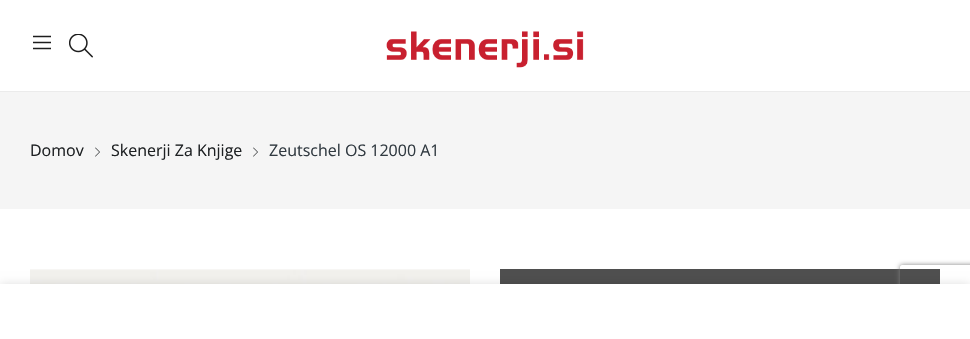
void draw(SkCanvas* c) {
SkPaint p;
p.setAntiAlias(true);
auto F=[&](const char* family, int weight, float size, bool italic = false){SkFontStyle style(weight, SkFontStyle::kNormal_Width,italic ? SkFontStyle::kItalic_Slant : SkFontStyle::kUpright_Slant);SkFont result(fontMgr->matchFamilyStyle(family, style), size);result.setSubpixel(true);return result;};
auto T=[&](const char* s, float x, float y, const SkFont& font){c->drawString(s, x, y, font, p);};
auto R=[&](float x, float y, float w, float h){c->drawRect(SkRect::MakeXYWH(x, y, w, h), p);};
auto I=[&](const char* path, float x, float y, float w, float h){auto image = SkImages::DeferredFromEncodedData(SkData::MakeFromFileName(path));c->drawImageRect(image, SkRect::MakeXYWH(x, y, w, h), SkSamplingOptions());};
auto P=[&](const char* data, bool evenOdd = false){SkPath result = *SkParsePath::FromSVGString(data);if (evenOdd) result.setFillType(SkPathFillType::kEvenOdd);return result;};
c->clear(0xffffffff);
p.setColor(0xffebebeb);
R(0,91,970,1);
I("1.png",33,35,18,15);
I("2.png",69,34,24,24);
I("3.png",386,31,198,37);
I("5.png",30,269,440,15);
p.setColor(0xff4f4f4f);
R(500,269,440,15);
p.setColor(0x1f000000);
p.setMaskFilter(SkMaskFilter::MakeBlur(kNormal_SkBlurStyle, 4.5));
c->drawRect(SkRect::MakeXYWH(0,284,970,55),p);
p.setMaskFilter(nullptr);
c->save();
c->clipPath(P("M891 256h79v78h-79zm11 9h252c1 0 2 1 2 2v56c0 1-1 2-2 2h-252c-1 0-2-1-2-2v-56c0-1 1-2 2-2z",true),true);
p.setColor(0xff808080);
p.setMaskFilter(SkMaskFilter::MakeBlur(kNormal_SkBlurStyle, 2.5));
c->drawRoundRect(SkRect::MakeXYWH(900,265,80,60),2,2,p);
p.setMaskFilter(nullptr);
c->restore();
p.setColor(0xffffffff);
R(0,284,970,55);
p.setColor(0xfff5f5f5);
R(0,92,970,117);
auto f1 = F("Open Sans",400,16);
p.setColor(0xff1e2123);
T("Domov",30,156,f1);
I("4.png",95,147,5,10);
T("Skenerji Za Knjige",111,156,f1);
I("4.png",253,147,5,10);
p.setColor(0xff313a41);
T("Zeutschel OS 12000 A1",269,156,f1);
}
